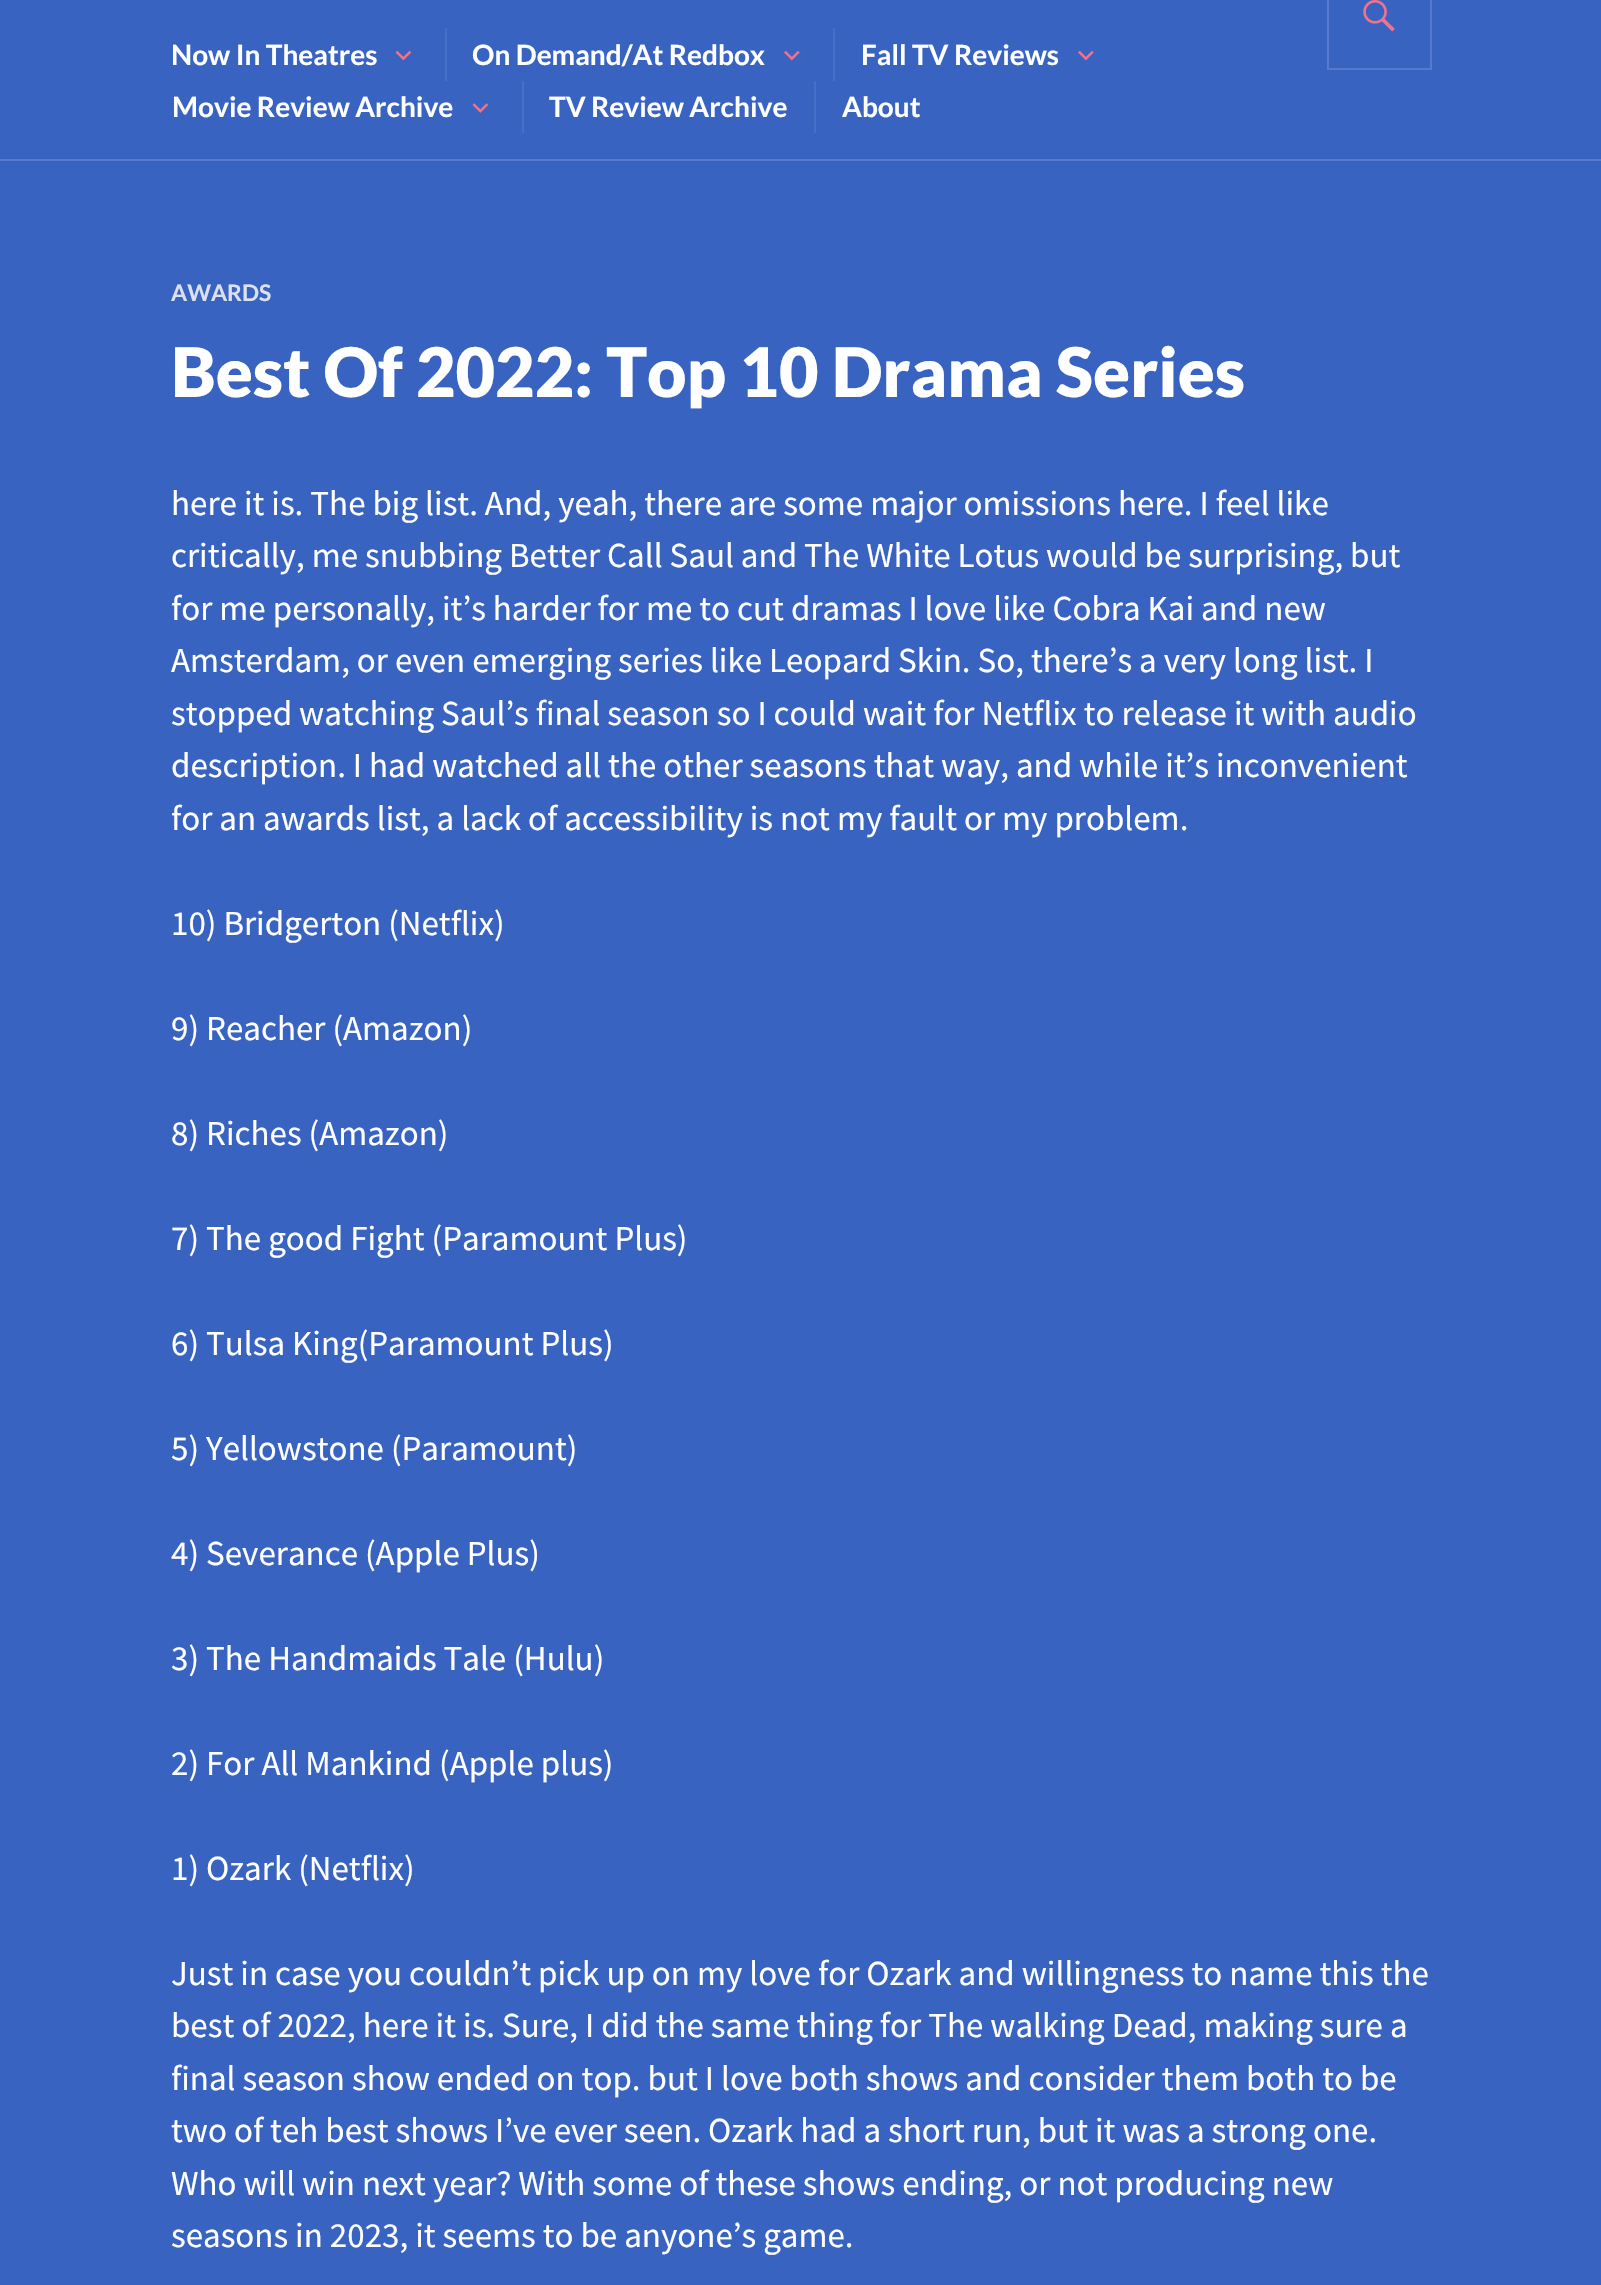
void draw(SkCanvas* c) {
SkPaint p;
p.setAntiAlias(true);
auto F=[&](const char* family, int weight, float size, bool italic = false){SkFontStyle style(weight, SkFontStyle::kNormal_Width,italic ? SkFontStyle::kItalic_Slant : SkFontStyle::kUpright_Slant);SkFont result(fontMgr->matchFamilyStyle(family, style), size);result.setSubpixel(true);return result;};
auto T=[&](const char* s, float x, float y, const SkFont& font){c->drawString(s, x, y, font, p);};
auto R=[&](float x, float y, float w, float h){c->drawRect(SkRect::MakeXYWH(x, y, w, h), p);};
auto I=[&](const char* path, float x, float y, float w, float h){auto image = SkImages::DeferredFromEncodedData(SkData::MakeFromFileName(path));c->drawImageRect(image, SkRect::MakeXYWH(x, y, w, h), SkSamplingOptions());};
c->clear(0xff3863c1);
p.setColor(0xff567bcc);
R(0,159,1601,2);
p.setStroke(true);
p.setStrokeWidth(2);
c->drawRect(SkRect::MakeXYWH(1328,-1,103,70),p);
I("1.png",1363,0,32,32);
auto f1 = F("Lato",700,28);
p.setStroke(false);
p.setColor(0xffffffff);
T("Now In Theatres",171,65,f1);
I("2.png",395,50,17,11);
p.setColor(0xff466fc7);
R(445,28,2,53);
p.setColor(0xffffffff);
T("On Demand/At Redbox",472,65,f1);
I("3.png",784,50,16,11);
p.setColor(0xff466fc7);
R(833,28,2,53);
p.setColor(0xffffffff);
T("Fall TV Reviews",861,65,f1);
I("3.png",1078,50,16,11);
T("Movie Review Archive",172,117,f1);
I("4.png",472,103,17,10);
p.setColor(0xff466fc7);
R(522,81,2,52);
p.setColor(0xffffffff);
T("TV Review Archive",549,117,f1);
p.setColor(0xff466fc7);
R(814,81,2,52);
p.setColor(0xffffffff);
T("About",842,117,f1);
auto f2 = F("Lato",700,22.75);
p.setColor(0xffdce1ee);
T("AWARDS",171,301,f2);
auto f3 = F("Lato",900,68.25);
p.setColor(0xffffffff);
T("Best Of 2022: Top 10 Drama Series",171,397,f3);
auto f4 = F("Source Sans Pro",400,35);
T("here it is. The big list. And, yeah, there are some major omissions here. I feel like",171,515,f4);
T("critically, me snubbing Better Call Saul and The White Lotus would be surprising, but",171,567,f4);
T("for me personally, it’s harder for me to cut dramas I love like Cobra Kai and new",171,620,f4);
T("Amsterdam, or even emerging series like Leopard Skin. So, there’s a very long list. I",171,672,f4);
T("stopped watching Saul’s final season so I could wait for Netflix to release it with audio",171,725,f4);
T("description. I had watched all the other seasons that way, and while it’s inconvenient",171,777,f4);
T("for an awards list, a lack of accessibility is not my fault or my problem.",171,830,f4);
T("10) Bridgerton (Netflix)",171,935,f4);
T("9) Reacher (Amazon)",171,1040,f4);
T("8) Riches (Amazon)",171,1145,f4);
T("7) The good Fight (Paramount Plus)",171,1250,f4);
T("6) Tulsa King(Paramount Plus)",171,1355,f4);
T("5) Yellowstone (Paramount)",171,1460,f4);
T("4) Severance (Apple Plus)",171,1565,f4);
T("3) The Handmaids Tale (Hulu)",171,1670,f4);
T("2) For All Mankind (Apple plus)",171,1775,f4);
T("1) Ozark (Netflix)",171,1880,f4);
T("Just in case you couldn’t pick up on my love for Ozark and willingness to name this the",171,1985,f4);
T("best of 2022, here it is. Sure, I did the same thing for The walking Dead, making sure a",171,2037,f4);
T("final season show ended on top. but I love both shows and consider them both to be",171,2090,f4);
T("two of teh best shows I’ve ever seen. Ozark had a short run, but it was a strong one.",171,2142,f4);
T("Who will win next year? With some of these shows ending, or not producing new",171,2195,f4);
T("seasons in 2023, it seems to be anyone’s game.",171,2247,f4);
}
